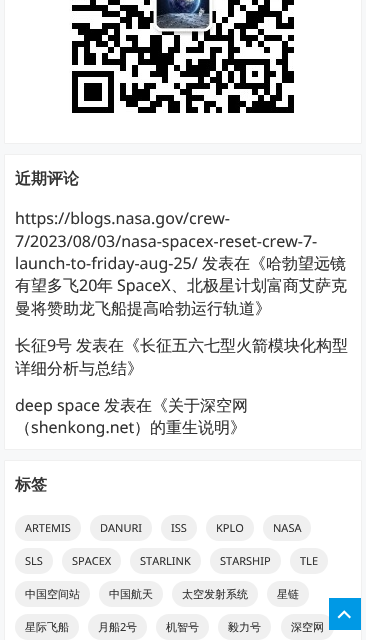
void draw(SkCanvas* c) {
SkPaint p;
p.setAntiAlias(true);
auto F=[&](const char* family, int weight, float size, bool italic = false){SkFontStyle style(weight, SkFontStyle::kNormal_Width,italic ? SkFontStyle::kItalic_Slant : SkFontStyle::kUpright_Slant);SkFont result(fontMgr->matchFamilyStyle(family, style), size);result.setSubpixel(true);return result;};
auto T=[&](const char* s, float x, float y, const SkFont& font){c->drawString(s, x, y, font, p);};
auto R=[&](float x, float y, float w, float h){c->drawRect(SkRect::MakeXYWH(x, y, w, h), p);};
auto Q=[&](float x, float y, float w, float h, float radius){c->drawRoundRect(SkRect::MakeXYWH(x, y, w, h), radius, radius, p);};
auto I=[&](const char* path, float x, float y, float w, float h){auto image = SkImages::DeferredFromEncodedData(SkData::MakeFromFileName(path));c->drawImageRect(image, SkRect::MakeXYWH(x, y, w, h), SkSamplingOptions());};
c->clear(0xfff7f8f9);
p.setColor(0xffffffff);
c->drawRoundRect(SkRect::MakeXYWH(4.5,-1.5,357,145),.5,.5,p);
p.setStroke(true);
p.setStrokeWidth(1);
p.setColor(0xfff0f0f0);
c->drawRoundRect(SkRect::MakeXYWH(4.5,-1.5,357,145),.5,.5,p);
I("1.png",69,0,225,113);
p.setStroke(false);
p.setColor(0xffffffff);
c->drawRoundRect(SkRect::MakeXYWH(4.5,154.5,357,295),.5,.5,p);
p.setStroke(true);
p.setColor(0xfff0f0f0);
c->drawRoundRect(SkRect::MakeXYWH(4.5,154.5,357,295),.5,.5,p);
auto f1 = F("WenQuanYi Zen Hei",700,16);
p.setStroke(false);
p.setColor(0xff333333);
T("近期评论",15,184,f1);
auto f2 = F("Noto Sans",400,16);
T("https://blogs.nasa.gov/crew-",15,224,f2);
T("7/2023/08/03/nasa-spacex-reset-crew-7-",15,247,f2);
T("launch-to-friday-aug-25/",15,269,f2);
auto f3 = F("WenQuanYi Zen Hei",500,16);
T("发表在《哈勃望远镜",202,269,f3);
T("有望多飞",15,291,f3);
T("20",79,291,f2);
T("年",97,291,f3);
T("SpaceX",117,291,f2);
T("、北极星计划富商艾萨克",171,291,f3);
T("曼将赞助龙飞船提高哈勃运行轨道》",15,314,f3);
T("长征",15,351,f3);
T("9",47,351,f2);
T("号",56,351,f3);
T("发表在《长征五六七型火箭模块化构型",76,351,f3);
T("详细分析与总结》",15,374,f3);
T("deep space",15,411,f2);
T("发表在《关于深空网",104,411,f3);
T("（",15,433,f3);
T("shenkong.net",31,433,f2);
T("）的重生说明》",134,433,f3);
p.setColor(0xffffffff);
c->drawRoundRect(SkRect::MakeXYWH(4.5,460.5,357,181),.5,.5,p);
p.setStroke(true);
p.setColor(0xfff0f0f0);
c->drawRoundRect(SkRect::MakeXYWH(4.5,460.5,357,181),.5,.5,p);
p.setStroke(false);
p.setColor(0xff333333);
T("标签",15,490,f1);
p.setColor(0xfff0f0f0);
Q(15,515,66,26,13);
auto f4 = F("Noto Sans",400,11);
p.setColor(0xff333333);
T("ARTEMIS",25,532,f4);
p.setColor(0xfff0f0f0);
Q(90,515,62,26,13);
p.setColor(0xff333333);
T("DANURI",100,532,f4);
p.setColor(0xfff0f0f0);
Q(161,515,36,26,13);
p.setColor(0xff333333);
T("ISS",171,532,f4);
p.setColor(0xfff0f0f0);
Q(206,515,48,26,13);
p.setColor(0xff333333);
T("KPLO",216,532,f4);
p.setColor(0xfff0f0f0);
Q(263,515,48,26,13);
p.setColor(0xff333333);
T("NASA",273,532,f4);
p.setColor(0xfff0f0f0);
Q(15,548,38,26,13);
p.setColor(0xff333333);
T("SLS",25,565,f4);
p.setColor(0xfff0f0f0);
Q(62,548,59,26,13);
p.setColor(0xff333333);
T("SPACEX",72,565,f4);
p.setColor(0xfff0f0f0);
Q(130,548,71,26,13);
p.setColor(0xff333333);
T("STARLINK",140,565,f4);
p.setColor(0xfff0f0f0);
Q(210,548,71,26,13);
p.setColor(0xff333333);
T("STARSHIP",220,565,f4);
p.setColor(0xfff0f0f0);
Q(290,548,38,26,13);
p.setColor(0xff333333);
T("TLE",300,565,f4);
p.setColor(0xfff0f0f0);
Q(15,581,75,26,13);
auto f5 = F("WenQuanYi Zen Hei",500,11);
p.setColor(0xff333333);
T("中国空间站",25,598,f5);
p.setColor(0xfff0f0f0);
Q(99,581,64,26,13);
p.setColor(0xff333333);
T("中国航天",109,598,f5);
p.setColor(0xfff0f0f0);
Q(172,581,86,26,13);
p.setColor(0xff333333);
T("太空发射系统",182,598,f5);
p.setColor(0xfff0f0f0);
Q(267,581,42,26,13);
p.setColor(0xff333333);
T("星链",277,598,f5);
p.setColor(0xfff0f0f0);
Q(15,614,64,26,13);
p.setColor(0xff333333);
T("星际飞船",25,631,f5);
p.setColor(0xfff0f0f0);
Q(88,614,59,26,13);
p.setColor(0xff333333);
T("月船",98,631,f5);
T("2",120,631,f4);
T("号",126,631,f5);
p.setColor(0xfff0f0f0);
Q(156,614,53,26,13);
p.setColor(0xff333333);
T("机智号",166,631,f5);
p.setColor(0xfff0f0f0);
Q(218,614,53,26,13);
p.setColor(0xff333333);
T("毅力号",228,631,f5);
p.setColor(0xfff0f0f0);
Q(281,614,53,26,13);
p.setColor(0xff333333);
T("深空网",291,631,f5);
p.setColor(0xff0099e5);
R(329,598,32,32);
I("2.png",337,610,14,9);
}
